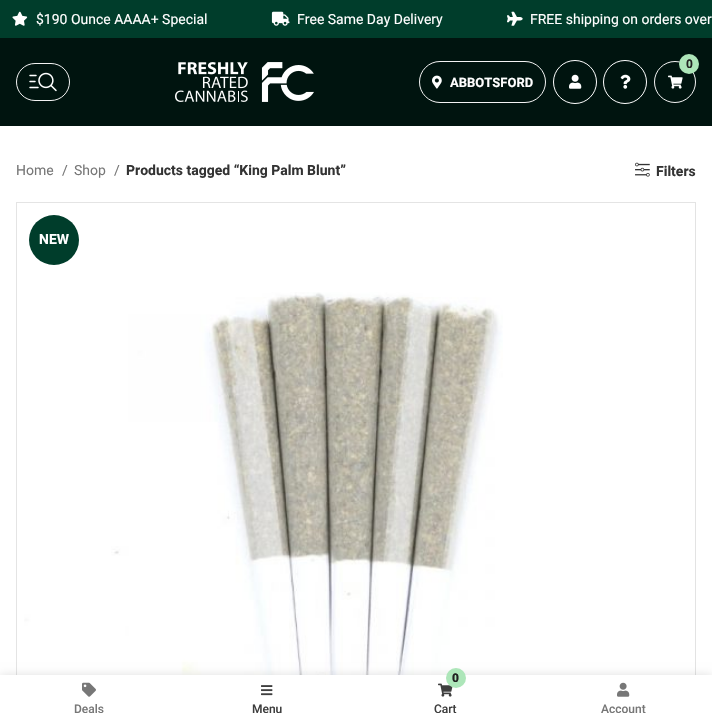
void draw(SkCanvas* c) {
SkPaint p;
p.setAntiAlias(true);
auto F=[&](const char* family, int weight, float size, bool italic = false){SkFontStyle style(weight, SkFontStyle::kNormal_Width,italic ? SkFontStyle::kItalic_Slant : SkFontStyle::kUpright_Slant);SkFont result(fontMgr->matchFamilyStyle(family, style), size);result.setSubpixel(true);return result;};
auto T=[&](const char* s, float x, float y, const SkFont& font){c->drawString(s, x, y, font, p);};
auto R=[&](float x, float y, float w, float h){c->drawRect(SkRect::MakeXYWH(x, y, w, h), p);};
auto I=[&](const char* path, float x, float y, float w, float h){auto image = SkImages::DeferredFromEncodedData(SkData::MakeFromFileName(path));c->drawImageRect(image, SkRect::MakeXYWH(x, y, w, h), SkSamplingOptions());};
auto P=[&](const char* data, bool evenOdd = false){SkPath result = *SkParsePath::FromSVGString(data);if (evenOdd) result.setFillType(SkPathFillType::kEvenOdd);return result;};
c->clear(0xffffffff);
p.setColor(0xff003d2b);
R(0,0,712,38);
I("1.png",12,11,16,15);
auto f1 = F("Roboto",400,14);
p.setColor(0xffffffff);
T("$190 Ounce AAAA+ Special",36,24,f1);
I("2.png",271,11,19,15);
T("Free Same Day Delivery",297,24,f1);
I("3.png",507,11,16,15);
T("FREE shipping on orders over",530,24,f1);
p.setColor(0xff00140f);
R(0,38,712,88);
p.setStroke(true);
p.setStrokeWidth(1);
p.setColor(0xfff3f3f3);
c->drawRoundRect(SkRect::MakeXYWH(16.5,63.5,53,37),18.5,18.5,p);
I("4.png",29,72,28,20);
I("5.png",175,62,139,40);
c->drawRoundRect(SkRect::MakeXYWH(419.5,61.5,126,41),20.5,20.5,p);
I("6.png",432,75,10,14);
auto f2 = F("Roboto",700,13);
p.setStroke(false);
p.setColor(0xffffffff);
T("ABBOTSFORD",450,87,f2);
I("7.png",569,74,13,15);
p.setStroke(true);
c->drawCircle(575,82,21.5,p);
I("8.png",620,74,11,15);
c->drawCircle(625,82,21.5,p);
p.setColor(0xfff3f3f3);
c->drawCircle(675,82,20.5,p);
p.setStroke(false);
p.setColor(0xffade6b9);
c->drawCircle(689,64,10,p);
auto f3 = F("Roboto",700,12);
p.setColor(0xff222222);
T("0",686,68,f3);
I("9.png",668,75,15,14);
p.setColor(0xff777777);
T("Home",16,175,f1);
T("/",62,175,f1);
T("Shop",74,175,f1);
T("/",114,175,f1);
auto f4 = F("Roboto",700,14);
p.setColor(0xff333333);
T("Products tagged “King Palm Blunt”",126,175,f4);
I("10.png",635,162,15,15);
T("Filters",656,176,f4);
p.setColor(0xffe4e4e4);
R(16,202,1,473);
c->drawPath(P("M17 202h679l-1 1h-678z"),p);
p.setColor(0x1c000000);
c->drawPath(P("M696 202v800l-1-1v-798z"),p);
p.setColor(0xff003d2b);
c->drawCircle(54,240,25,p);
p.setColor(0xffffffff);
T("NEW",39,244,f4);
I("11.png",24,292,479,383);
p.setColor(0x1f000000);
p.setMaskFilter(SkMaskFilter::MakeBlur(kNormal_SkBlurStyle, 4.5));
c->drawRect(SkRect::MakeXYWH(0,675,712,50),p);
p.setMaskFilter(nullptr);
p.setColor(0xffffffff);
R(0,675,712,50);
I("12.png",82,682,14,15);
auto f5 = F("Roboto",500,12);
p.setColor(0xff777777);
T("Deals",74,713,f5);
I("13.png",261,685,12,11);
p.setColor(0xff3e3e3e);
T("Menu",252,713,f5);
I("14.png",438,683,15,14);
p.setColor(0xffade6b9);
c->drawCircle(456,678,10,p);
auto f6 = F("Roboto",900,12);
p.setColor(0xff222222);
T("0",452,682,f6);
p.setColor(0xff3e3e3e);
T("Cart",434,713,f5);
I("15.png",617,682,13,15);
p.setColor(0xff777777);
T("Account",601,713,f5);
}
